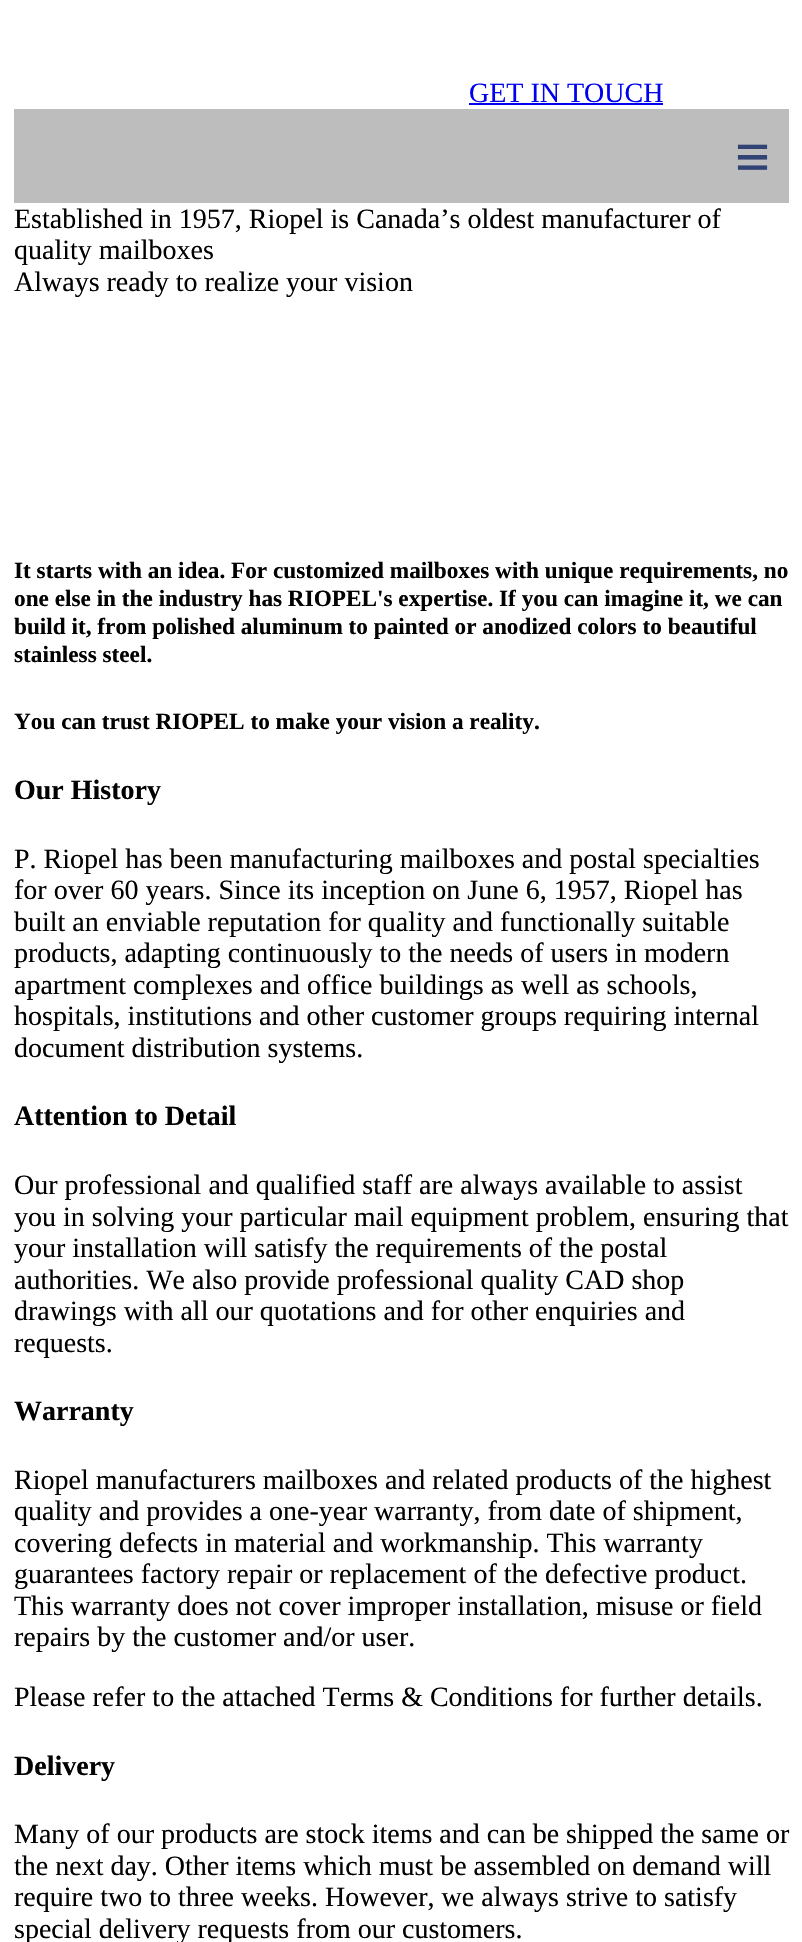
void draw(SkCanvas* c) {
SkPaint p;
p.setAntiAlias(true);
auto F=[&](const char* family, int weight, float size, bool italic = false){SkFontStyle style(weight, SkFontStyle::kNormal_Width,italic ? SkFontStyle::kItalic_Slant : SkFontStyle::kUpright_Slant);SkFont result(fontMgr->matchFamilyStyle(family, style), size);result.setSubpixel(true);return result;};
auto T=[&](const char* s, float x, float y, const SkFont& font){c->drawString(s, x, y, font, p);};
auto L=[&](const char* s, float x, float y, const SkFont& font, const SkPaint& ink, float letter, float word){std::vector<SkGlyphID> glyphs(font.countText(s, strlen(s), SkTextEncoding::kUTF8));std::vector<float> xs(glyphs.size());font.textToGlyphs(s, strlen(s), SkTextEncoding::kUTF8, glyphs);font.getXPos(glyphs, xs, x);float extra = 0;for (size_t i = 0; i < glyphs.size(); i++) {xs[i] += extra;extra += letter + word * (glyphs[i] == font.unicharToGlyph(' '));}c->drawTextBlob(SkTextBlob::MakeFromPosHGlyphs(glyphs, xs, y, font), 0, 0, ink);};
auto R=[&](float x, float y, float w, float h){c->drawRect(SkRect::MakeXYWH(x, y, w, h), p);};
c->clear(0xffffffff);
auto f1 = F("Liberation Serif",400,28);
p.setColor(0xff0000ee);
T("GET IN TOUCH",469,102,f1);
R(469,103,194,2);
p.setColor(0xffbdbdbd);
R(14,109,775,94);
auto f2 = F("Liberation Sans",700,60);
p.setColor(0xff314275);
L("≡",735,177,f2,p,2,0);
p.setColor(0xff000000);
T("Established in 1957, Riopel is Canada’s oldest manufacturer of",14,228,f1);
T("quality mailboxes",14,259,f1);
T("Always ready to realize your vision",14,291,f1);
auto f3 = F("Liberation Serif",700,23.25);
T("It starts with an idea. For customized mailboxes with unique requirements, no",14,578,f3);
T("one else in the industry has RIOPEL's expertise. If you can imagine it, we can",14,606,f3);
T("build it, from polished aluminum to painted or anodized colors to beautiful",14,634,f3);
T("stainless steel.",14,662,f3);
T("You can trust RIOPEL to make your vision a reality.",14,729,f3);
auto f4 = F("Liberation Serif",700,28);
T("Our History",14,799,f4);
T("P. Riopel has been manufacturing mailboxes and postal specialties",14,868,f1);
T("for over 60 years. Since its inception on June 6, 1957, Riopel has",14,899,f1);
T("built an enviable reputation for quality and functionally suitable",14,931,f1);
T("products, adapting continuously to the needs of users in modern",14,962,f1);
T("apartment complexes and office buildings as well as schools,",14,994,f1);
T("hospitals, institutions and other customer groups requiring internal",14,1025,f1);
T("document distribution systems.",14,1057,f1);
T("Attention to Detail",14,1125,f4);
T("Our professional and qualified staff are always available to assist",14,1194,f1);
T("you in solving your particular mail equipment problem, ensuring that",14,1226,f1);
T("your installation will satisfy the requirements of the postal",14,1257,f1);
T("authorities. We also provide professional quality CAD shop",14,1289,f1);
T("drawings with all our quotations and for other enquiries and",14,1320,f1);
T("requests.",14,1352,f1);
T("Warranty",14,1420,f4);
T("Riopel manufacturers mailboxes and related products of the highest",14,1489,f1);
T("quality and provides a one-year warranty, from date of shipment,",14,1520,f1);
T("covering defects in material and workmanship. This warranty",14,1552,f1);
T("guarantees factory repair or replacement of the defective product.",14,1583,f1);
T("This warranty does not cover improper installation, misuse or field",14,1615,f1);
T("repairs by the customer and/or user.",14,1646,f1);
T("Please refer to the attached Terms & Conditions for further details.",14,1706,f1);
T("Delivery",14,1775,f4);
T("Many of our products are stock items and can be shipped the same or",14,1843,f1);
T("the next day. Other items which must be assembled on demand will",14,1875,f1);
T("require two to three weeks. However, we always strive to satisfy",14,1906,f1);
T("special delivery requests from our customers.",14,1938,f1);
}
